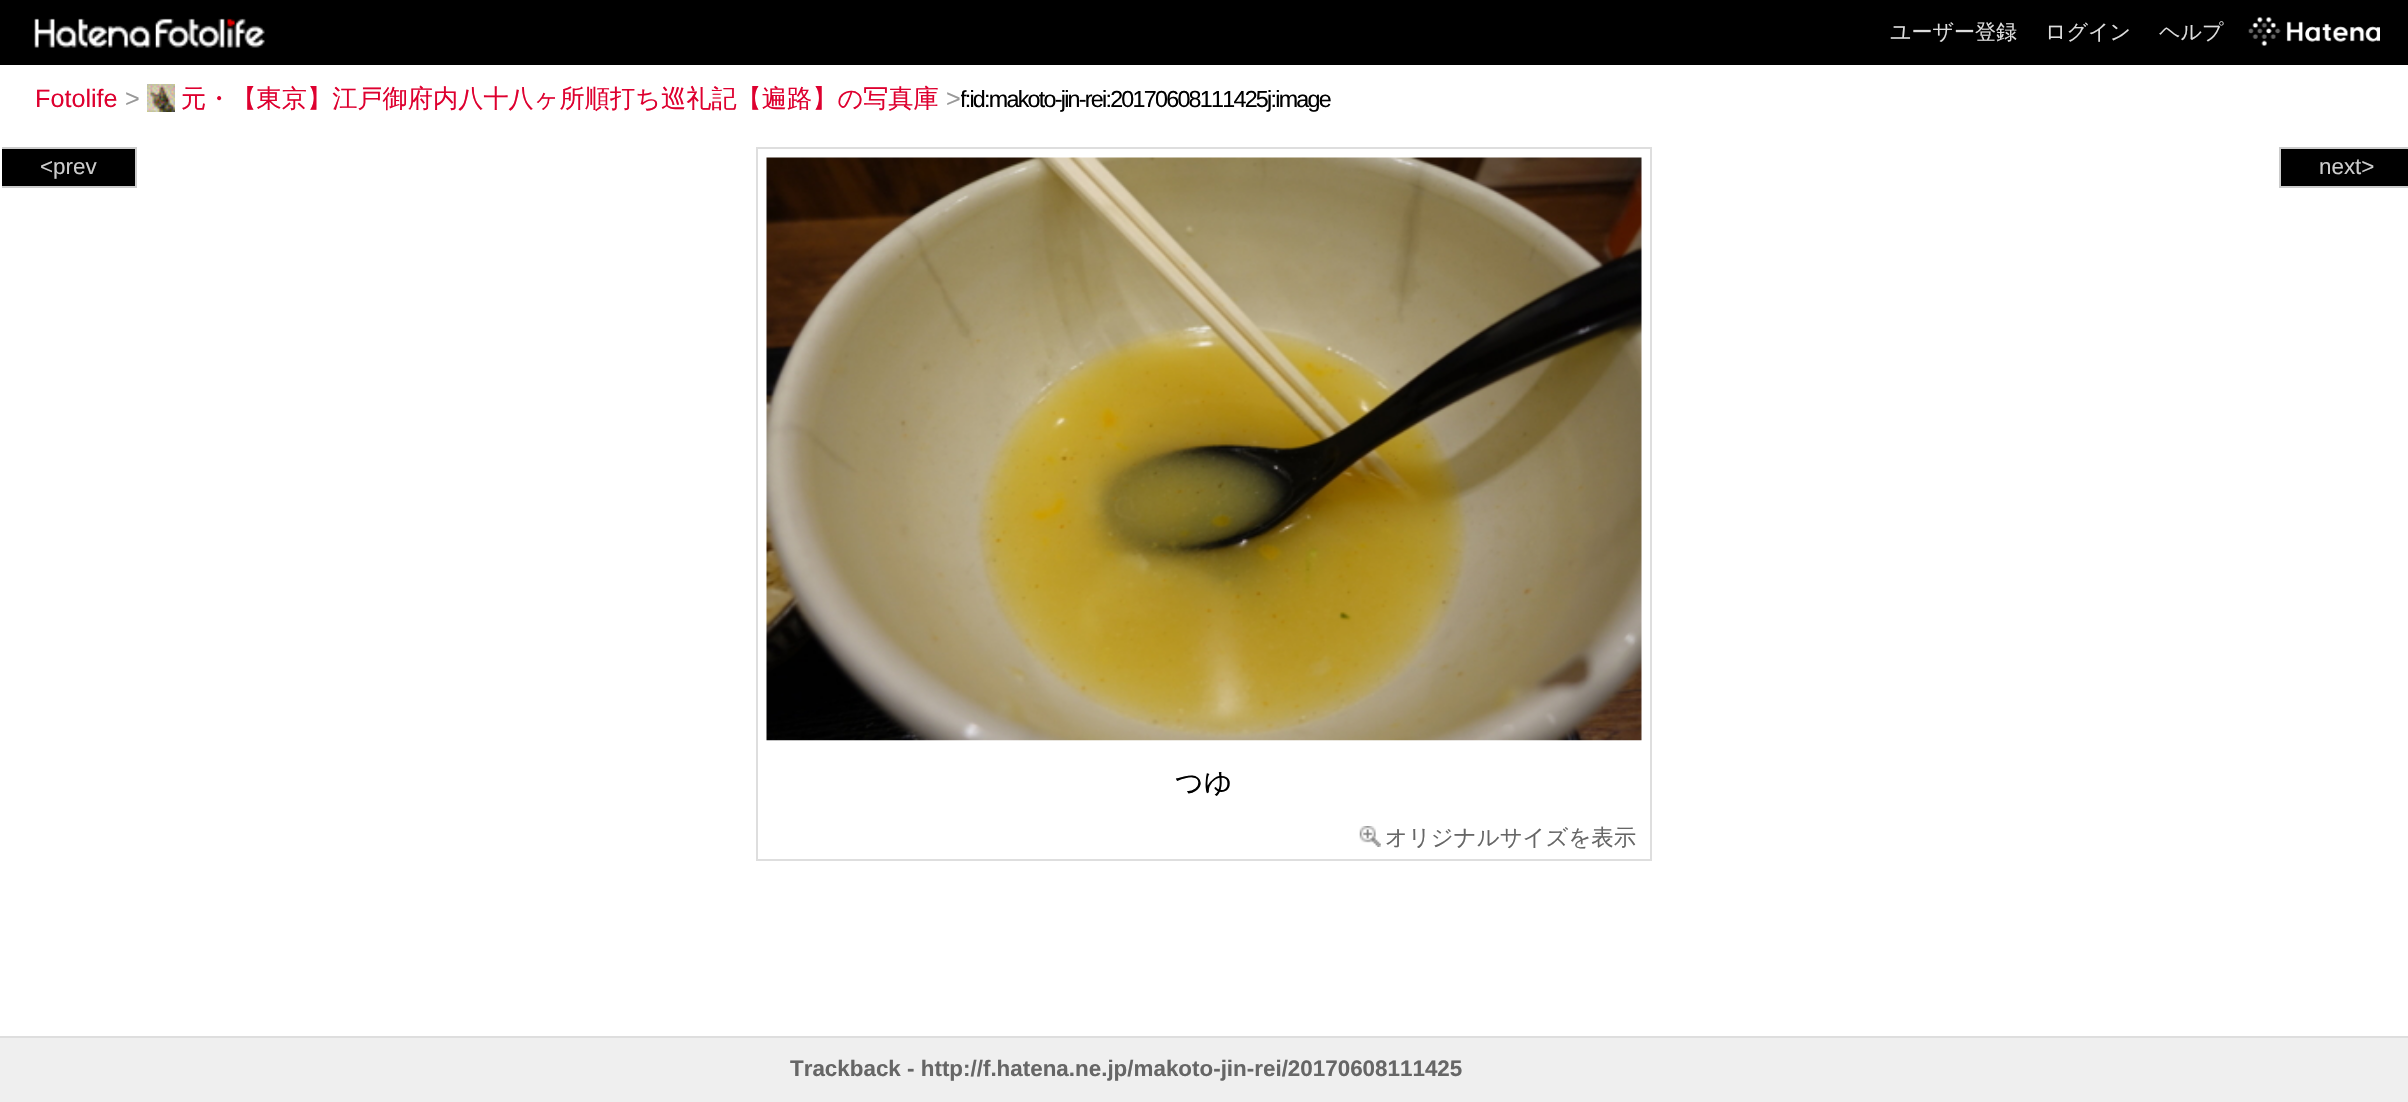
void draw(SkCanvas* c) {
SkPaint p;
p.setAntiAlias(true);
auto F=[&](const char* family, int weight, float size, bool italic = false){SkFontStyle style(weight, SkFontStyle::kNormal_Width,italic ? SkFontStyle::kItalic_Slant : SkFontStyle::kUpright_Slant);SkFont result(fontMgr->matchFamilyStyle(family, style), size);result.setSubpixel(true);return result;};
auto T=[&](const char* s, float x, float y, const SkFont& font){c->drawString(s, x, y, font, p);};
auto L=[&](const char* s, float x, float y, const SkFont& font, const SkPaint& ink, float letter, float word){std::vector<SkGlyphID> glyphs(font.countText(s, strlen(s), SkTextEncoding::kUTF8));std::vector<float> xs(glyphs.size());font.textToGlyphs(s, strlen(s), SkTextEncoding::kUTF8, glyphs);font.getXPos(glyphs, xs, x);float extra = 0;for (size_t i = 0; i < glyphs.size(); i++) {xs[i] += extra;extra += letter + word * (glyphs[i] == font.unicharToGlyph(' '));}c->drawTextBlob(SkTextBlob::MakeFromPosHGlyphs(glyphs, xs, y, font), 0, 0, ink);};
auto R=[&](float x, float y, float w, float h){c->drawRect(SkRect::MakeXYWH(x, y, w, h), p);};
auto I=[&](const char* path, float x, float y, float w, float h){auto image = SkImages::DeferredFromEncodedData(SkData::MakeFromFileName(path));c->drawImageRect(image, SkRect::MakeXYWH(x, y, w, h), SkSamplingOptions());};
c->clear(0xffefefef);
p.setColor(0xff000000);
R(0,0,2408,65);
I("1.png",34,18,117,30);
I("2.png",155,18,110,30);
auto f1 = F("WenQuanYi Zen Hei",500,21);
p.setColor(0xffdddddd);
T("ユーザー登録",1890,39,f1);
T("ログイン",2045,39,f1);
T("ヘルプ",2159,39,f1);
I("3.png",2248,17,132,29);
p.setColor(0xffffffff);
R(0,65,2408,971);
auto f2 = F("Liberation Sans",400,25.2);
p.setColor(0xffde002f);
T("Fotolife",35,107,f2);
p.setColor(0xff999999);
T(">",125,107,f2);
I("4.png",147,84,28,28);
auto f3 = F("WenQuanYi Zen Hei",500,25.2);
p.setColor(0xffde002f);
T("元・【東京】江戸御府内八十八ヶ所順打ち巡礼記【遍路】の写真庫",181,107,f3);
p.setColor(0xff999999);
T(">",946,107,f2);
c->save();
c->clipRect(SkRect::MakeXYWH(961,86,660,26));
auto f4 = F("Liberation Sans",400,23.3);
p.setColor(0xff000000);
L("f:id:makoto-jin-rei:20170608111425j:image",960,107,f4,p,-1.75,0);
c->restore();
p.setColor(0xffdedede);
R(0,1036,2408,2);
p.setColor(0xff000000);
R(2,149,133,37);
p.setColor(0xffcccccc);
R(2,147,135,2);
R(135,147,2,40);
R(2,186,135,2);
auto f5 = F("Liberation Sans",400,22.4);
T("<prev",40,174,f5);
p.setColor(0xff000000);
R(2281,149,127,37);
p.setColor(0xffcccccc);
R(2279,147,129,2);
R(2279,186,129,2);
R(2279,147,2,40);
T("next>",2319,174,f5);
p.setStroke(true);
p.setStrokeWidth(2);
p.setColor(0xffdedede);
c->drawRect(SkRect::MakeXYWH(757,148,894,712),p);
I("5.png",766,157,876,584);
auto f6 = F("WenQuanYi Zen Hei",500,28);
p.setStroke(false);
p.setColor(0xff000000);
T("つゆ",1175,792,f6);
I("6.png",1359,826,22,21);
auto f7 = F("WenQuanYi Zen Hei",500,22.4);
p.setColor(0xff666666);
T("オリジナルサイズを表示",1385,845,f7);
auto f8 = F("Liberation Sans",700,22.4);
T("Trackback - http://f.hatena.ne.jp/makoto-jin-rei/20170608111425",790,1076,f8);
}
